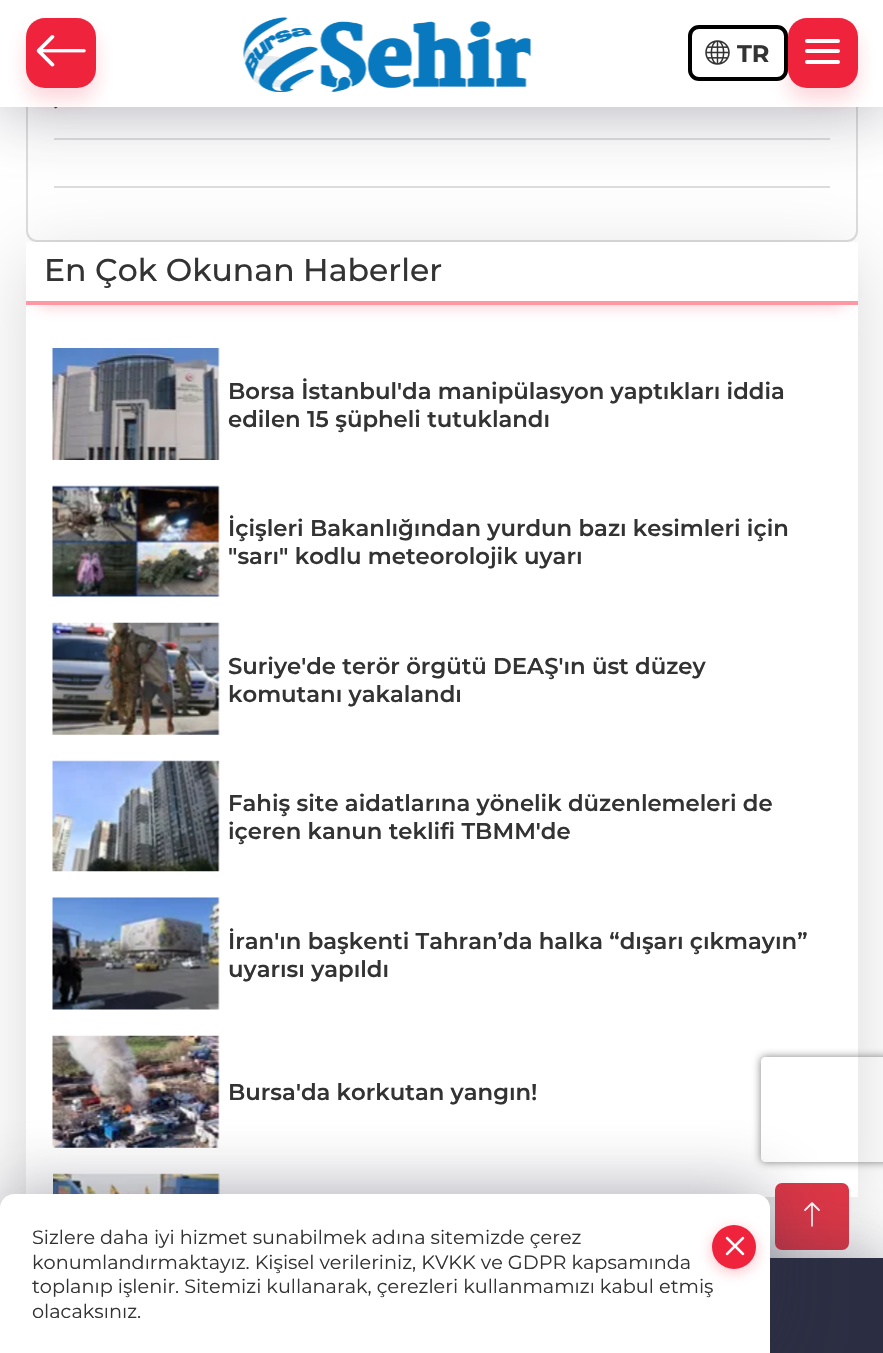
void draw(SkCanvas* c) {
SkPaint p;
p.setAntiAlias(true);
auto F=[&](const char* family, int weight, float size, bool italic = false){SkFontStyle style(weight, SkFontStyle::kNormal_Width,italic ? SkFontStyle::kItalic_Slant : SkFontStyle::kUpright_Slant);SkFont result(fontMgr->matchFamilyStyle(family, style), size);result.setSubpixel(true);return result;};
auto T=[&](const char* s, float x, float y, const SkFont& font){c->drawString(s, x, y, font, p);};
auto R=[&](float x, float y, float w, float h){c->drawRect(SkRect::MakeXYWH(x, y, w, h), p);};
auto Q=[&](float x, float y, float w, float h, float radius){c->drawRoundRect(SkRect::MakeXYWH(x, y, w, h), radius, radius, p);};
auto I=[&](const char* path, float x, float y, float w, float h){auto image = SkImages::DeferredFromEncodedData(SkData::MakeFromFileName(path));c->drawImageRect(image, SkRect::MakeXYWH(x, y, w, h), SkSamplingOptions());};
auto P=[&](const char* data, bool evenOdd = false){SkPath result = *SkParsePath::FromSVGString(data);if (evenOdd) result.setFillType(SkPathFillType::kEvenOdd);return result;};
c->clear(0xffffffff);
p.setStroke(true);
p.setStrokeWidth(2);
p.setColor(0xffdddddd);
c->drawRoundRect(SkRect::MakeXYWH(27,38,830,203),10,10,p);
p.setStroke(false);
R(54,138,776,2);
I("4.png",54,107,4,2);
R(54,186,776,2);
p.setColor(0x5c2b2d42);
p.setMaskFilter(SkMaskFilter::MakeBlur(kNormal_SkBlurStyle, 33));
c->drawRect(SkRect::MakeXYWH(0,5,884,107),p);
p.setMaskFilter(nullptr);
p.setColor(0xffffffff);
R(0,0,883,107);
p.setColor(0x2eef233c);
p.setMaskFilter(SkMaskFilter::MakeBlur(kNormal_SkBlurStyle, 9.5));
c->drawRoundRect(SkRect::MakeXYWH(26,30,70,70),19,19,p);
p.setMaskFilter(nullptr);
p.setColor(0xffef233c);
Q(26,18,70,70,19);
I("1.png",36,35,50,32);
I("2.png",243,17,288,75);
p.setColor(0x2eef233c);
p.setMaskFilter(SkMaskFilter::MakeBlur(kNormal_SkBlurStyle, 9.5));
c->drawRoundRect(SkRect::MakeXYWH(788,30,70,70),19,19,p);
p.setMaskFilter(nullptr);
p.setColor(0xffffffff);
c->drawRoundRect(SkRect::MakeXYWH(690,27,96,52),9,9,p);
p.setStroke(true);
p.setStrokeWidth(4);
p.setColor(0xff000000);
c->drawRoundRect(SkRect::MakeXYWH(690,27,96,52),9,9,p);
I("3.png",705,40,25,25);
auto f1 = F("Montserrat",700,24);
p.setStroke(false);
p.setColor(0xff333333);
T("TR",737,62,f1);
p.setColor(0xffef233c);
Q(788,18,70,70,19);
p.setColor(0xffffffff);
Q(805,49,35,4,2);
Q(805,39,35,4,2);
Q(805,60,35,4,2);
p.setColor(0x26000000);
p.setMaskFilter(SkMaskFilter::MakeBlur(kNormal_SkBlurStyle, 35));
c->drawRect(SkRect::MakeXYWH(26,259,832,956),p);
p.setMaskFilter(nullptr);
p.setColor(0xffffffff);
R(26,242,832,955);
c->save();
c->clipPath(P("M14 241h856v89h-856zm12 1h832v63h-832z",true),true);
p.setColor(0x61ff566a);
p.setMaskFilter(SkMaskFilter::MakeBlur(kNormal_SkBlurStyle, 8));
c->drawRect(SkRect::MakeXYWH(39,266,806,39),p);
p.setMaskFilter(nullptr);
c->restore();
p.setColor(0x99ff5167);
R(26,301,832,4);
auto f2 = F("Montserrat",500,31.5);
p.setColor(0xff333333);
T("En Çok Okunan Haberler",44,281,f2);
I("5.png",52,348,168,112);
auto f3 = F("Montserrat",600,22.75);
T("Borsa İstanbul'da manipülasyon yaptıkları iddia",228,399,f3);
T("edilen 15 şüpheli tutuklandı",228,427,f3);
I("6.png",52,485,168,112);
T("İçişleri Bakanlığından yurdun bazı kesimleri için",228,536,f3);
T("\"sarı\" kodlu meteorolojik uyarı",228,564,f3);
I("7.png",52,622,168,113);
T("Suriye'de terör örgütü DEAŞ'ın üst düzey",228,674,f3);
T("komutanı yakalandı",228,702,f3);
I("8.png",52,760,168,112);
T("Fahiş site aidatlarına yönelik düzenlemeleri de",228,811,f3);
T("içeren kanun teklifi TBMM'de",228,839,f3);
I("9.png",52,897,168,113);
T("İran'ın başkenti Tahran’da halka “dışarı çıkmayın”",228,949,f3);
T("uyarısı yapıldı",228,977,f3);
I("10.png",52,1035,168,113);
T("Bursa'da korkutan yangın!",228,1100,f3);
I("11.png",53,1173,167,21);
p.setColor(0x332b2d42);
p.setMaskFilter(SkMaskFilter::MakeBlur(kNormal_SkBlurStyle, 33));
c->drawRect(SkRect::MakeXYWH(0,1271,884,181),p);
p.setMaskFilter(nullptr);
p.setColor(0xffdc3545);
c->drawRoundRect(SkRect::MakeXYWH(776,1184,72,65),6,6,p);
p.setStroke(true);
p.setStrokeWidth(2);
c->drawRoundRect(SkRect::MakeXYWH(776,1184,72,65),6,6,p);
I("12.png",804,1202,16,25);
p.setStroke(false);
p.setColor(0x5c2b2d42);
p.setMaskFilter(SkMaskFilter::MakeBlur(kNormal_SkBlurStyle, 33));
c->drawRect(SkRect::MakeXYWH(0,1253,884,96),p);
p.setMaskFilter(nullptr);
p.setColor(0xff2b2d42);
R(770,1258,113,95);
c->save();
c->clipPath(P("M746 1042h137v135h-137zm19 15h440c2 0 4 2 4 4v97c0 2-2 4-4 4h-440c-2 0-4-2-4-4v-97c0-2 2-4 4-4z",true),true);
p.setColor(0xff808080);
p.setMaskFilter(SkMaskFilter::MakeBlur(kNormal_SkBlurStyle, 4.5));
c->drawRoundRect(SkRect::MakeXYWH(761,1057,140,105),4,4,p);
p.setMaskFilter(nullptr);
c->restore();
p.setColor(0x5c2b2d42);
p.setMaskFilter(SkMaskFilter::MakeBlur(kNormal_SkBlurStyle, 33));
c->drawRoundRect(SkRect::MakeXYWH(0,1188,770,161),14,14,p);
p.setMaskFilter(nullptr);
p.setColor(0xffffffff);
c->drawPath(P("M14 1194h742c7.5 0 14 6.5 14 14v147h-770v-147c0-7.5 6.5-14 14-14z"),p);
auto f4 = F("Montserrat",400,19.25);
p.setColor(0xff333333);
T("Sizlere daha iyi hizmet sunabilmek adına sitemizde çerez",32,1244,f4);
p.setColor(0x61ff566a);
p.setMaskFilter(SkMaskFilter::MakeBlur(kNormal_SkBlurStyle, 7));
c->drawRoundRect(SkRect::MakeXYWH(712,1229,44,43),21.5,21.5,p);
p.setMaskFilter(nullptr);
p.setColor(0xffef233c);
c->drawCircle(734,1247,22,p);
I("13.png",725,1236,20,20);
p.setColor(0xff333333);
T("konumlandırmaktayız. Kişisel verileriniz, KVKK ve GDPR kapsamında",32,1269,f4);
T("toplanıp işlenir. Sitemizi kullanarak, çerezleri kullanmamızı kabul etmiş",32,1293,f4);
T("olacaksınız.",32,1318,f4);
}
